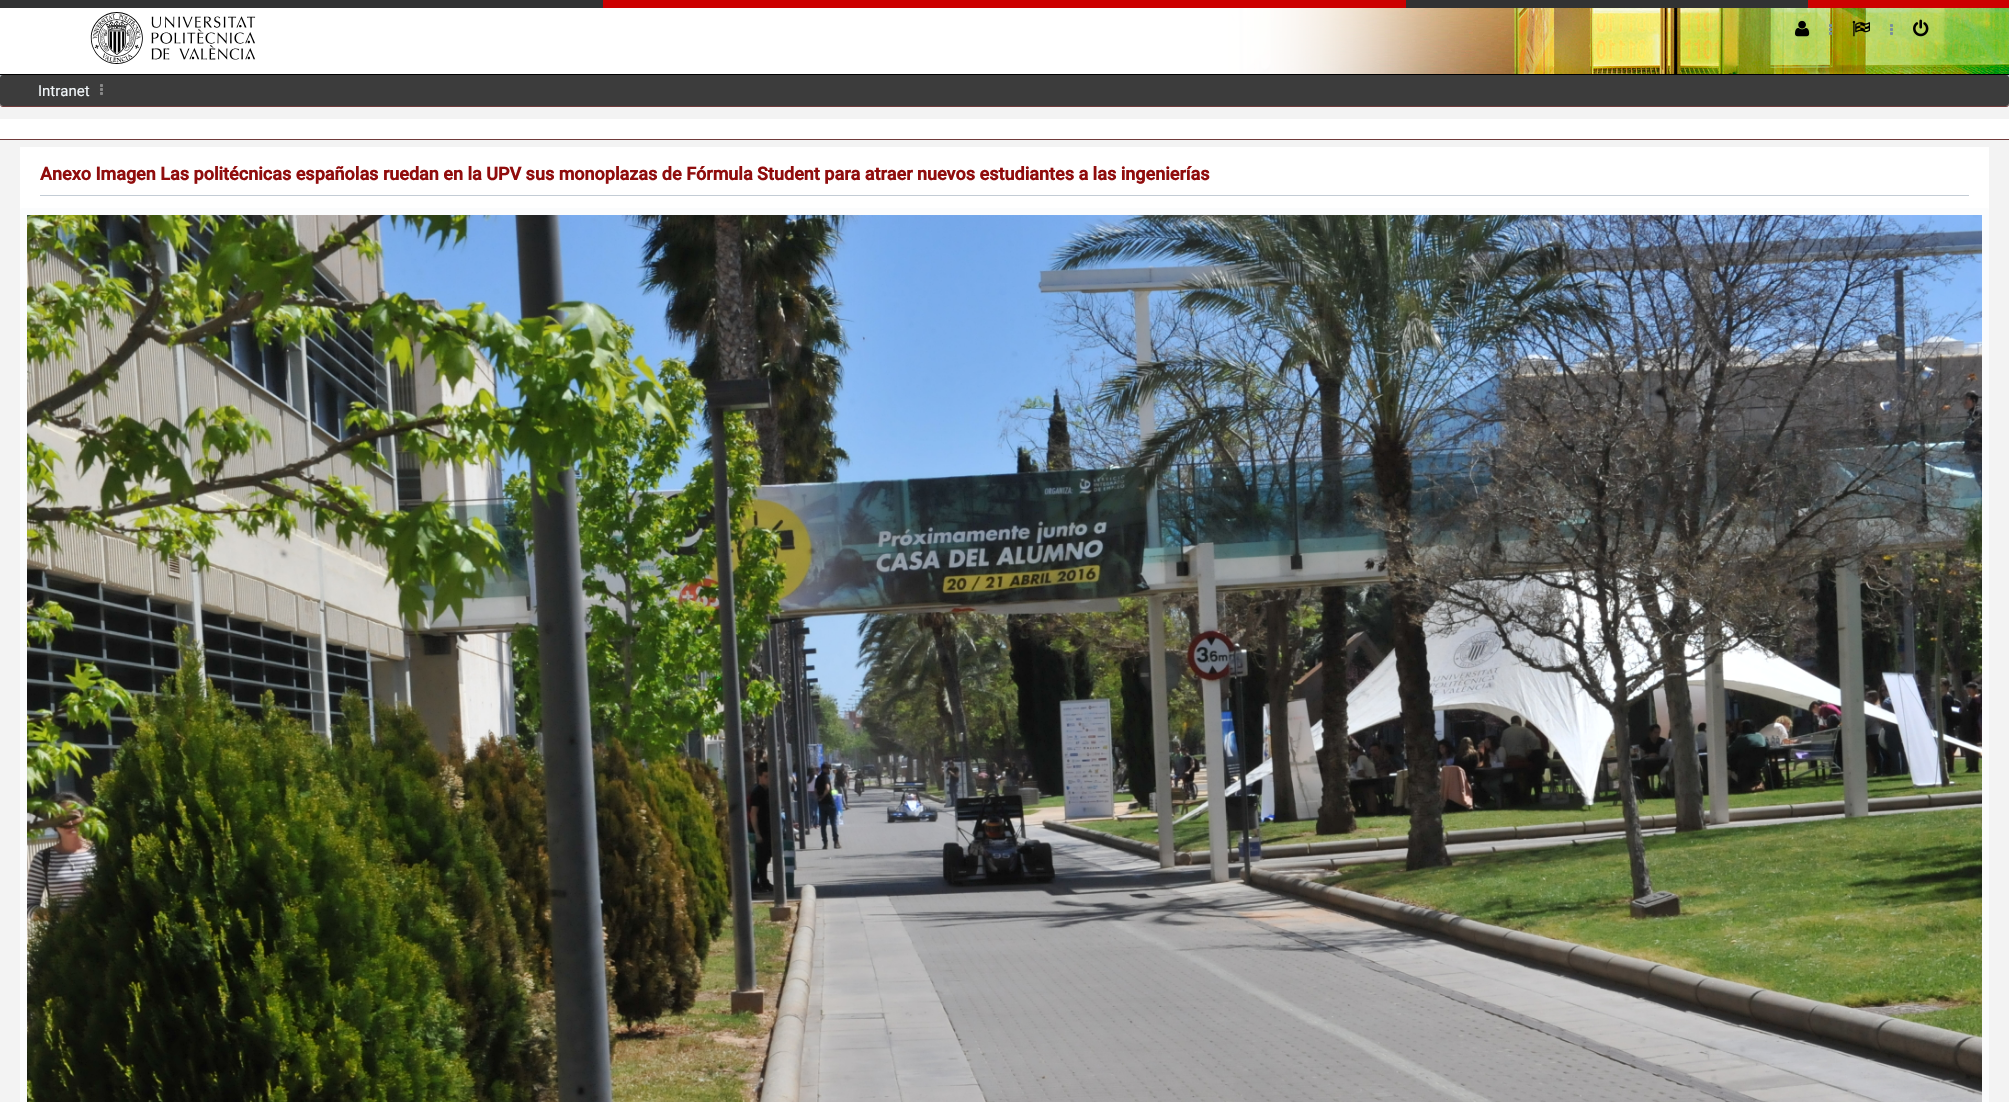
void draw(SkCanvas* c) {
SkPaint p;
p.setAntiAlias(true);
auto F=[&](const char* family, int weight, float size, bool italic = false){SkFontStyle style(weight, SkFontStyle::kNormal_Width,italic ? SkFontStyle::kItalic_Slant : SkFontStyle::kUpright_Slant);SkFont result(fontMgr->matchFamilyStyle(family, style), size);result.setSubpixel(true);return result;};
auto T=[&](const char* s, float x, float y, const SkFont& font){c->drawString(s, x, y, font, p);};
auto R=[&](float x, float y, float w, float h){c->drawRect(SkRect::MakeXYWH(x, y, w, h), p);};
auto Q=[&](float x, float y, float w, float h, float radius){c->drawRoundRect(SkRect::MakeXYWH(x, y, w, h), radius, radius, p);};
auto I=[&](const char* path, float x, float y, float w, float h){auto image = SkImages::DeferredFromEncodedData(SkData::MakeFromFileName(path));c->drawImageRect(image, SkRect::MakeXYWH(x, y, w, h), SkSamplingOptions());};
auto P=[&](const char* data, bool evenOdd = false){SkPath result = *SkParsePath::FromSVGString(data);if (evenOdd) result.setFillType(SkPathFillType::kEvenOdd);return result;};
c->clear(0xfff3f3f3);
p.setColor(0xffb8c1c9);
R(0,75,2009,1);
p.setColor(0xffffffff);
R(0,8,1183,66);
I("1.png",1183,8,826,66);
p.setColor(0xff000000);
R(0,74,2009,1);
p.setColor(0xffcc0000);
R(603,0,1406,8);
p.setColor(0xff313233);
R(0,0,603,8);
R(1406,0,402,8);
I("2.png",90,12,166,52);
I("3.png",1795,20,15,17);
I("4.png",1829,24,3,11);
I("5.png",1852,20,18,17);
I("6.png",1890,24,3,11);
I("7.png",1913,19,16,18);
p.setColor(0xff713b3b);
c->drawPath(P("M0 103v1c0 2 1 3 3 3h2003c2 0 3-1 3-3v-1c0 2-1 3-3 3h-2003c-2 0-3-1-3-3z"),p);
p.setColor(0xff3c3c3c);
Q(0,75,2009,31,3);
auto f1 = F("Roboto",400,15);
p.setColor(0xfff1f6f9);
T("Intranet",38,96,f1);
I("8.png",100,84,3,11);
p.setColor(0xff713b3b);
R(0,139,2009,1);
p.setColor(0xffffffff);
R(0,119,2009,20);
R(20,147,1969,64);
p.setColor(0xffc3ccd5);
R(40,195,1929,1);
auto f2 = F("Roboto",700,18);
p.setColor(0xff900d0d);
T("Anexo Imagen Las politécnicas españolas ruedan en la UPV sus monoplazas de Fórmula Student para atraer nuevos estudiantes a las ingenierías",40,180,f2);
p.setColor(0xfffbfcfd);
Q(20,208,1969,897,3);
I("9.png",27,215,1955,887);
}
